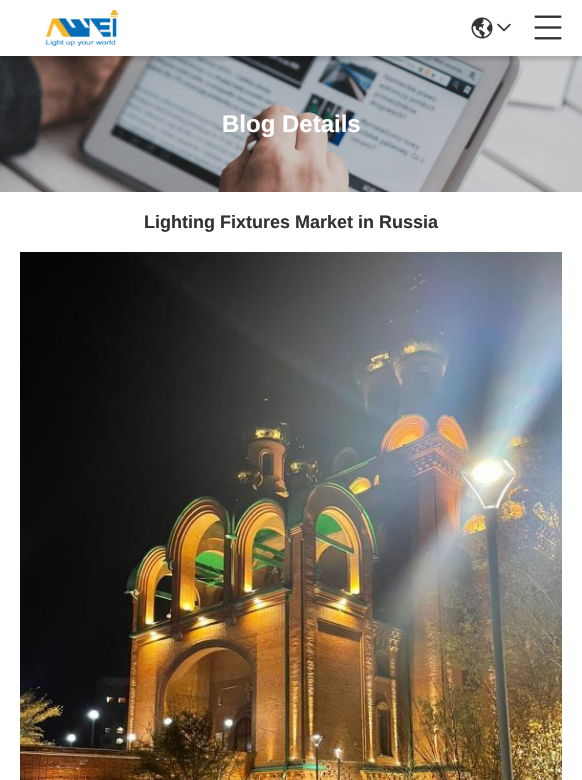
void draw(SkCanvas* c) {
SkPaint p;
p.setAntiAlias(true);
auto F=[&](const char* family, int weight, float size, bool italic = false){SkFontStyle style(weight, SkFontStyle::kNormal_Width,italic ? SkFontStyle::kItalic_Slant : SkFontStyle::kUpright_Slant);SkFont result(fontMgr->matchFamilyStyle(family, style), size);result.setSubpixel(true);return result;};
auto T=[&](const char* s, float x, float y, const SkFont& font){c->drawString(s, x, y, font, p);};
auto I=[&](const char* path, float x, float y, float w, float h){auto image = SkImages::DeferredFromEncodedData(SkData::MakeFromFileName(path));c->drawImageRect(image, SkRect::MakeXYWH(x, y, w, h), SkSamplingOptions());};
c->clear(0xffffffff);
I("5.png",0,56,582,136);
c->save();
c->clipRect(SkRect::MakeXYWH(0,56,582,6));
p.setColor(0x26000000);
p.setMaskFilter(SkMaskFilter::MakeBlur(kNormal_SkBlurStyle, 2));
c->drawRect(SkRect::MakeXYWH(0,4,582,56),p);
p.setMaskFilter(nullptr);
c->restore();
I("1.png",45,10,73,36);
I("2.png",471,17,22,22);
I("3.png",497,23,14,9);
I("4.png",534,15,28,25);
auto f1 = F("Liberation Sans",700,24);
p.setColor(0xffffffff);
T("Blog Details",222,132,f1);
auto f2 = F("Liberation Sans",700,18);
p.setColor(0xff323232);
T("Lighting Fixtures Market in Russia",144,228,f2);
I("6.png",20,252,542,528);
}
